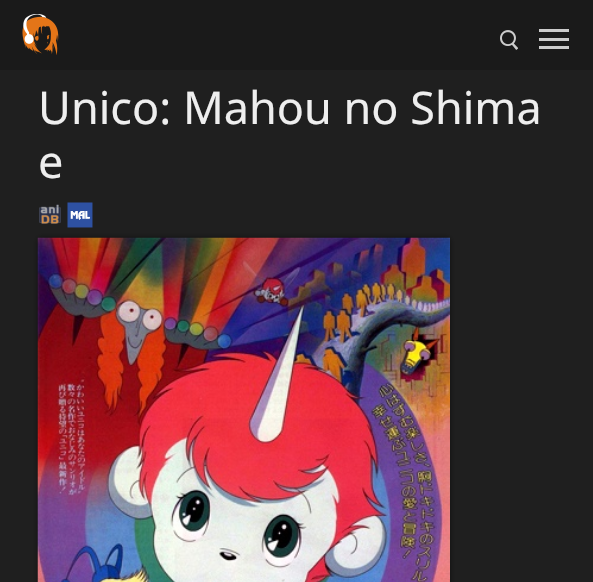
void draw(SkCanvas* c) {
SkPaint p;
p.setAntiAlias(true);
auto F=[&](const char* family, int weight, float size, bool italic = false){SkFontStyle style(weight, SkFontStyle::kNormal_Width,italic ? SkFontStyle::kItalic_Slant : SkFontStyle::kUpright_Slant);SkFont result(fontMgr->matchFamilyStyle(family, style), size);result.setSubpixel(true);return result;};
auto T=[&](const char* s, float x, float y, const SkFont& font){c->drawString(s, x, y, font, p);};
auto R=[&](float x, float y, float w, float h){c->drawRect(SkRect::MakeXYWH(x, y, w, h), p);};
auto I=[&](const char* path, float x, float y, float w, float h){auto image = SkImages::DeferredFromEncodedData(SkData::MakeFromFileName(path));c->drawImageRect(image, SkRect::MakeXYWH(x, y, w, h), SkSamplingOptions());};
c->clear(0xff1f1f1f);
p.setColor(0xff1a1a1a);
R(0,0,593,70);
I("1.png",22,14,37,41);
I("2.png",500,30,18,20);
p.setColor(0xffcccccc);
R(539,29,30,3);
R(539,38,30,3);
R(539,46,30,3);
auto f1 = F("Noto Sans",400,45);
p.setColor(0xffeeeeee);
T("Unico: Mahou no Shima",38,124,f1);
T("e",38,178,f1);
I("3.png",39,204,22,20);
I("4.png",67,202,26,26);
p.setColor(0xff0f0f0f);
p.setMaskFilter(SkMaskFilter::MakeBlur(kNormal_SkBlurStyle, 3));
c->drawRect(SkRect::MakeXYWH(38,238,412,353),p);
p.setMaskFilter(nullptr);
I("5.png",37,237,413,345);
}
